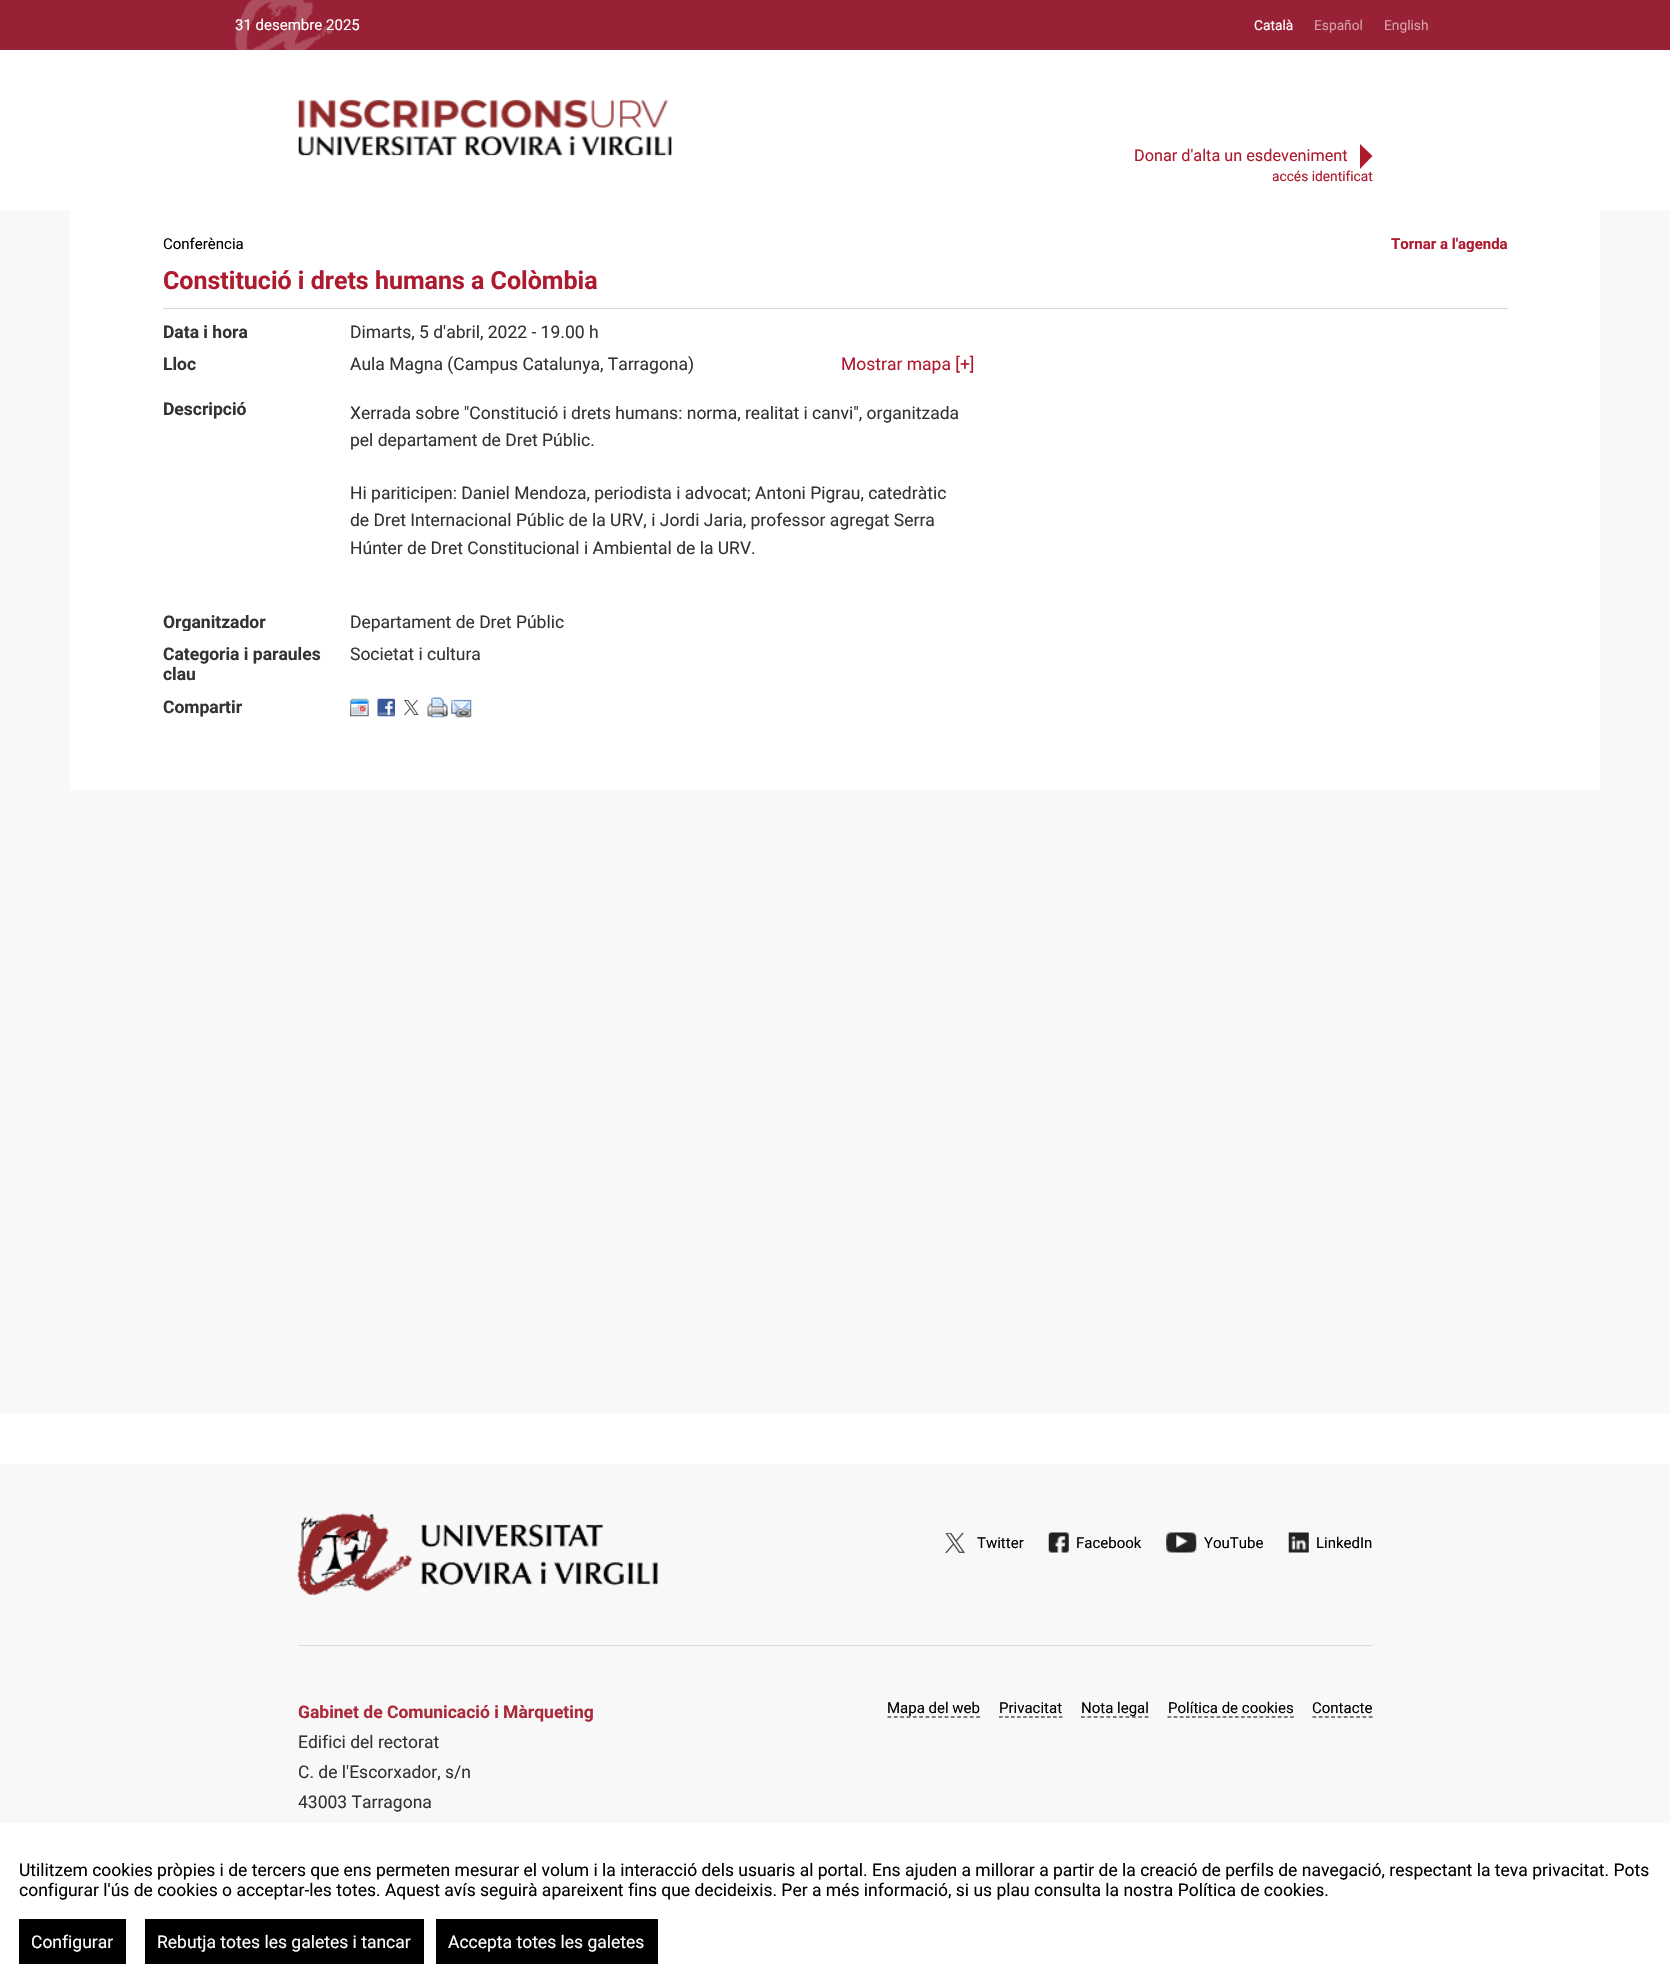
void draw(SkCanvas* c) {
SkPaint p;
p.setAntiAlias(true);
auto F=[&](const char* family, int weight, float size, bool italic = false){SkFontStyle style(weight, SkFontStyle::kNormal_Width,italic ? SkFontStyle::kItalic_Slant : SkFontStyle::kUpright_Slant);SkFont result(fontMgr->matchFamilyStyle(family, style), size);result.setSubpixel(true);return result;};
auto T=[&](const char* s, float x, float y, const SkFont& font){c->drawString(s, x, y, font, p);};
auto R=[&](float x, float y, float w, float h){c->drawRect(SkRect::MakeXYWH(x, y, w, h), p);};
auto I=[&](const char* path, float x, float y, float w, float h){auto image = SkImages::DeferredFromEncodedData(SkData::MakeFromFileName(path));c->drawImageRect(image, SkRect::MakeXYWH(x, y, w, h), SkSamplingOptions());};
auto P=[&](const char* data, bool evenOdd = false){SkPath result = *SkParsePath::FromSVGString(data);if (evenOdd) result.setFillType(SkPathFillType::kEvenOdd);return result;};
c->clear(0xffffffff);
p.setColor(0xff992135);
R(0,0,1670,50);
I("1.png",235,0,99,50);
auto f1 = F("Roboto",400,15);
p.setColor(0xffffffff);
T("31 desembre 2025",235,30,f1);
auto f2 = F("Roboto",400,13.75);
T("Català",1254,30,f2);
p.setColor(0xffd5a1a9);
T("Español",1314,30,f2);
T("English",1384,30,f2);
I("2.png",298,99,374,57);
auto f3 = F("Roboto",400,16.25);
p.setColor(0xffae1b2e);
T("Donar d'alta un esdeveniment",1134,161,f3);
c->drawPath(P("M1360 169v-25l12.5 12z"),p);
T("accés identificat",1272,181,f2);
p.setColor(0xfff7f8fa);
R(0,210,1670,1204);
p.setColor(0xffffffff);
R(70,210,1530,580);
p.setColor(0xffd5d5d5);
R(163,308,1345,1);
p.setColor(0xff000000);
T("Conferència",163,249,f1);
auto f4 = F("Roboto",700,15);
p.setColor(0xffae1b2e);
T("Tornar a l'agenda",1391,249,f4);
auto f5 = F("Roboto",700,25);
T("Constitució i drets humans a Colòmbia",163,289,f5);
auto f6 = F("Roboto",700,17.5);
p.setColor(0xff333333);
T("Data i hora",163,338,f6);
auto f7 = F("Roboto",400,17.5);
T("Dimarts, 5 d'abril, 2022 - 19.00 h",350,338,f7);
T("Lloc",163,370,f6);
T("Aula Magna (Campus Catalunya, Tarragona)",350,370,f7);
p.setColor(0xffae1b2e);
T("Mostrar mapa [+]",841,370,f7);
p.setColor(0xff333333);
T("Descripció",163,415,f6);
T("Xerrada sobre \"Constitució i drets humans: norma, realitat i canvi\", organitzada",350,419,f7);
T("pel departament de Dret Públic.",350,446,f7);
T("Hi pariticipen: Daniel Mendoza, periodista i advocat; Antoni Pigrau, catedràtic",350,499,f7);
T("de Dret Internacional Públic de la URV, i Jordi Jaria, professor agregat Serra",350,526,f7);
T("Húnter de Dret Constitucional i Ambiental de la URV.",350,554,f7);
c->save();
c->clipRect(SkRect::MakeXYWH(163,611,1345,20));
T("Organitzador",163,628,f6);
c->restore();
T("Departament de Dret Públic",350,628,f7);
T("Categoria i paraules",163,660,f6);
T("clau",163,680,f6);
T("Societat i cultura",350,660,f7);
T("Compartir",163,713,f6);
I("3.png",350,698,19,19);
I("4.png",377,698,18,19);
I("5.png",404,700,15,15);
I("6.png",427,697,21,21);
I("7.png",451,699,21,19);
p.setColor(0xfff8f8f8);
R(0,1464,1670,359);
I("8.png",297,1513,361,82);
I("9.png",945,1533,20,20);
p.setColor(0xff000000);
T("Twitter",977,1548,f1);
I("10.png",1048,1532,21,21);
T("Facebook",1076,1548,f1);
I("11.png",1166,1532,31,21);
T("YouTube",1204,1548,f1);
I("12.png",1288,1532,21,21);
T("LinkedIn",1316,1548,f1);
p.setColor(0xffdddddd);
R(298,1645,1075,1);
p.setColor(0xffab293a);
T("Gabinet de Comunicació i Màrqueting",298,1718,f6);
p.setColor(0xff333333);
T("Edifici del rectorat",298,1748,f7);
T("C. de l'Escorxador, s/n",298,1778,f7);
T("43003 Tarragona",298,1808,f7);
p.setStroke(true);
p.setStrokeWidth(1.2);
p.setColor(0xff000000);
p.setPathEffect(SkDashPathEffect::Make({{3.75f,2.59f}}, 0));
c->drawPath(P("M887.5 1717h92.5"),p);
p.setPathEffect(nullptr);
p.setStroke(false);
T("Mapa del web",887,1713,f1);
T("Privacitat",999,1713,f1);
p.setStroke(true);
p.setPathEffect(SkDashPathEffect::Make({{3.75f,2.25f}}, 0));
c->drawPath(P("M999 1717h63.5"),p);
p.setPathEffect(nullptr);
p.setPathEffect(SkDashPathEffect::Make({{3.75f,2.62f}}, 0));
c->drawPath(P("M1081 1717h68"),p);
p.setPathEffect(nullptr);
p.setStroke(false);
T("Nota legal",1081,1713,f1);
T("Política de cookies",1168,1713,f1);
p.setStroke(true);
p.setPathEffect(SkDashPathEffect::Make({{3.75f,2.38f}}, 0));
c->drawPath(P("M1167.5 1717h126.5"),p);
p.setPathEffect(nullptr);
p.setStroke(false);
T("Contacte",1312,1713,f1);
p.setStroke(true);
p.setPathEffect(SkDashPathEffect::Make({{3.75f,2.5f}}, 0));
c->drawPath(P("M1312.5 1717h60"),p);
p.setPathEffect(nullptr);
p.setStroke(false);
T("Utilitzem cookies pròpies i de tercers que ens permeten mesurar el volum i la interacció dels usuaris al portal. Ens ajuden a millorar a partir de la creació de perfils de navegació, respectant la teva privacitat. Pots",19,1876,f7);
T("configurar l'ús de cookies o acceptar-les totes. Aquest avís seguirà apareixent fins que decideixis. Per a més informació, si us plau consulta la nostra Política de cookies.",19,1896,f7);
R(19,1919,107,45);
p.setColor(0xffffffff);
T("Configurar",31,1948,f7);
p.setColor(0xff000000);
R(145,1919,279,45);
p.setColor(0xffffffff);
T("Rebutja totes les galetes i tancar",157,1948,f7);
p.setColor(0xff000000);
R(436,1919,222,45);
p.setColor(0xffffffff);
T("Accepta totes les galetes",448,1948,f7);
}
